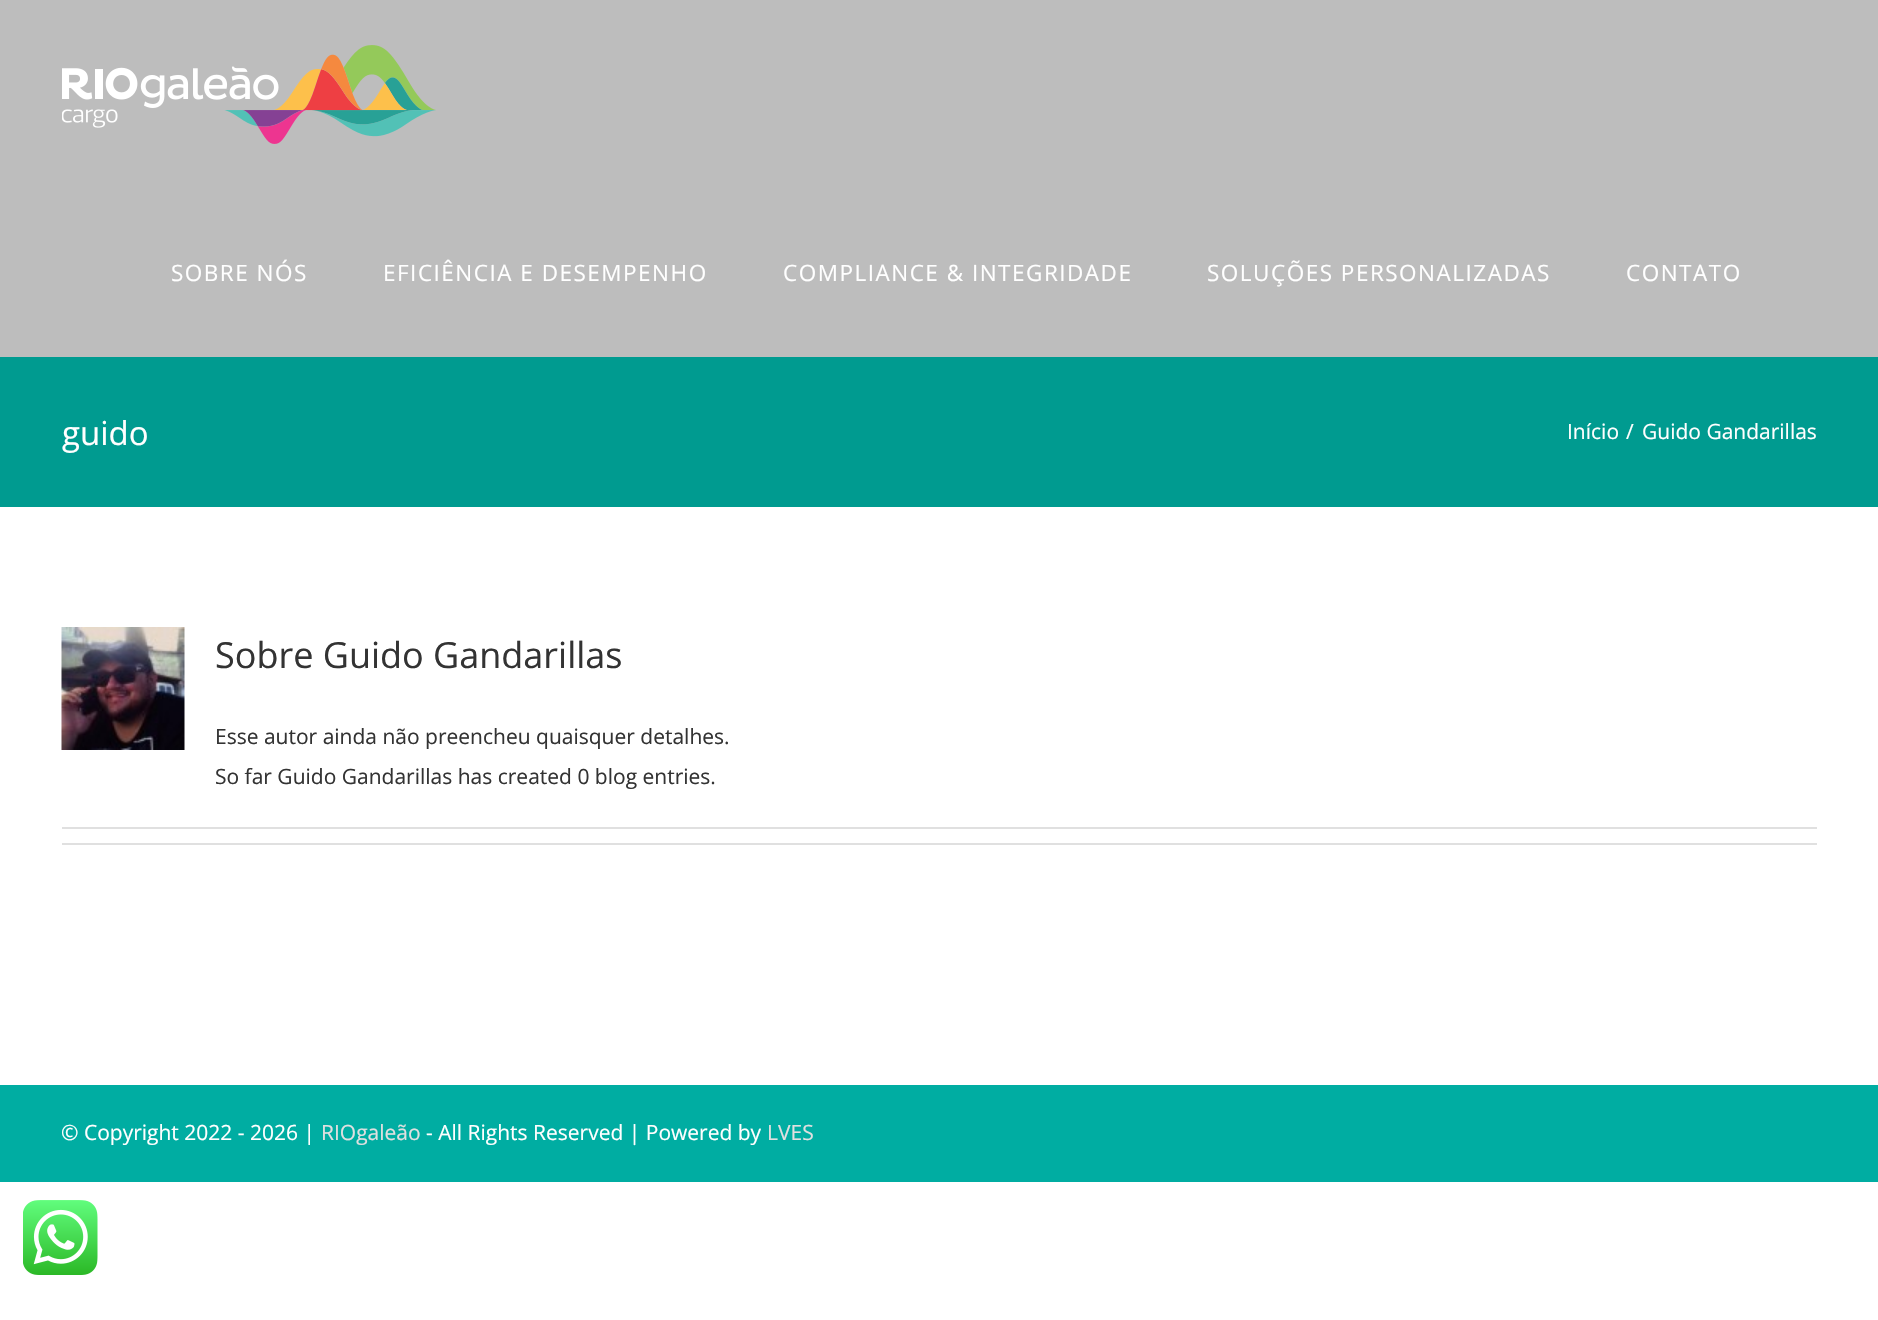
void draw(SkCanvas* c) {
SkPaint p;
p.setAntiAlias(true);
auto F=[&](const char* family, int weight, float size, bool italic = false){SkFontStyle style(weight, SkFontStyle::kNormal_Width,italic ? SkFontStyle::kItalic_Slant : SkFontStyle::kUpright_Slant);SkFont result(fontMgr->matchFamilyStyle(family, style), size);result.setSubpixel(true);return result;};
auto T=[&](const char* s, float x, float y, const SkFont& font){c->drawString(s, x, y, font, p);};
auto L=[&](const char* s, float x, float y, const SkFont& font, const SkPaint& ink, float letter, float word){std::vector<SkGlyphID> glyphs(font.countText(s, strlen(s), SkTextEncoding::kUTF8));std::vector<float> xs(glyphs.size());font.textToGlyphs(s, strlen(s), SkTextEncoding::kUTF8, glyphs);font.getXPos(glyphs, xs, x);float extra = 0;for (size_t i = 0; i < glyphs.size(); i++) {xs[i] += extra;extra += letter + word * (glyphs[i] == font.unicharToGlyph(' '));}c->drawTextBlob(SkTextBlob::MakeFromPosHGlyphs(glyphs, xs, y, font), 0, 0, ink);};
auto R=[&](float x, float y, float w, float h){c->drawRect(SkRect::MakeXYWH(x, y, w, h), p);};
auto I=[&](const char* path, float x, float y, float w, float h){auto image = SkImages::DeferredFromEncodedData(SkData::MakeFromFileName(path));c->drawImageRect(image, SkRect::MakeXYWH(x, y, w, h), SkSamplingOptions());};
c->clear(0xffffffff);
p.setColor(0xffbdbdbd);
R(0,0,1878,357);
I("1.png",62,45,374,99);
auto f1 = F("Open Sans",400,22.5);
p.setColor(0xffffffff);
L("SOBRE NÓS",171,281,f1,p,1.5,0);
L("EFICIÊNCIA E DESEMPENHO",383,281,f1,p,1.5,0);
L("COMPLIANCE & INTEGRIDADE",783,281,f1,p,1.5,0);
L("SOLUÇÕES PERSONALIZADAS",1207,281,f1,p,1.5,0);
L("CONTATO",1626,281,f1,p,1.5,0);
p.setColor(0xff009b90);
R(0,357,1878,150);
auto f2 = F("Open Sans",400,33);
p.setColor(0xffffffff);
T("guido",62,445,f2);
auto f3 = F("Open Sans",400,21);
T("Início",1567,439,f3);
T("/",1626,439,f3);
T("Guido Gandarillas",1642,439,f3);
I("2.png",61,627,124,123);
auto f4 = F("Open Sans",400,36);
p.setColor(0xff333333);
T("Sobre Guido Gandarillas",215,668,f4);
T("Esse autor ainda não preencheu quaisquer detalhes.",215,744,f3);
T("So far Guido Gandarillas has created 0 blog entries.",215,784,f3);
p.setColor(0xffe0e0e0);
R(62,827,1755,2);
R(62,843,1755,2);
p.setColor(0xff00ada2);
R(0,1085,1878,97);
p.setColor(0xffffffff);
T("© Copyright 2022 - 2026 |",61,1140,f3);
p.setColor(0xffe0e0e0);
T("RIOgaleão",321,1140,f3);
p.setColor(0xffffffff);
T("- All Rights Reserved | Powered by",426,1140,f3);
p.setColor(0xffe0e0e0);
T("LVES",767,1140,f3);
I("3.png",23,1200,75,75);
}
